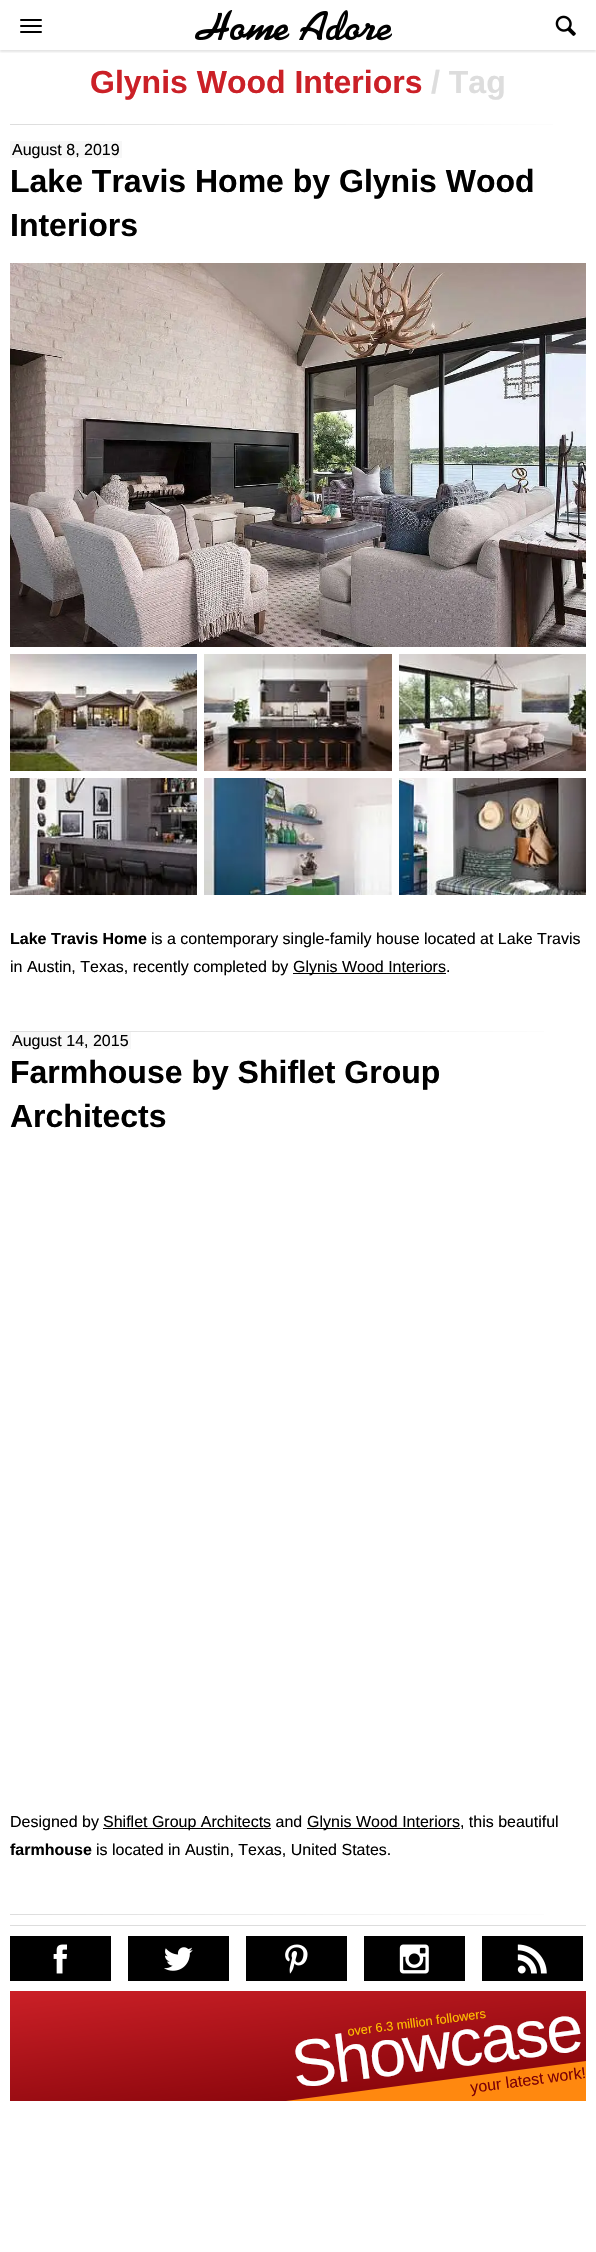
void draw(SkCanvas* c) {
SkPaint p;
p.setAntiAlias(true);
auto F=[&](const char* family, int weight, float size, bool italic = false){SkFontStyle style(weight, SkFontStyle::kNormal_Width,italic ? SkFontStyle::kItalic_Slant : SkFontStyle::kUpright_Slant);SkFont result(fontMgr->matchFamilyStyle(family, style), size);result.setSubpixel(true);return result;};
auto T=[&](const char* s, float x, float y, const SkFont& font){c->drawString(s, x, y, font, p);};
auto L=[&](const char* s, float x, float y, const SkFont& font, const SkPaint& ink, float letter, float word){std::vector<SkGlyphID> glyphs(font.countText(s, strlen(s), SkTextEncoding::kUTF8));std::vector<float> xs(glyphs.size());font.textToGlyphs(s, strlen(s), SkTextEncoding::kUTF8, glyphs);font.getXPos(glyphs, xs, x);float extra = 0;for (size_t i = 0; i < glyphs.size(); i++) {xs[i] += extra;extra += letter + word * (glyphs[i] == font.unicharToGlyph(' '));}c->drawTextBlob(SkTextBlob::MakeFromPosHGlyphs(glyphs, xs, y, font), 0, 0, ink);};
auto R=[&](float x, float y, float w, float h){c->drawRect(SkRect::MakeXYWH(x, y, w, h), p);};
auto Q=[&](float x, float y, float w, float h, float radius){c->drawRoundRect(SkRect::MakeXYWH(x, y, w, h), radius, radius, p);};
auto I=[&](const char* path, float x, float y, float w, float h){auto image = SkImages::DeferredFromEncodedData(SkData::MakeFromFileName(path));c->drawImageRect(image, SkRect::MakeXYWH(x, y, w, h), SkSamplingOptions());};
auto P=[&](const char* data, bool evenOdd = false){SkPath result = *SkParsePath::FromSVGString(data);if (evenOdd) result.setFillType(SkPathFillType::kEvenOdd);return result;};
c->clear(0xffffffff);
c->save();
c->clipRect(SkRect::MakeXYWH(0,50,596,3));
p.setColor(0x1a000000);
p.setMaskFilter(SkMaskFilter::MakeBlur(kNormal_SkBlurStyle, 1));
c->drawRect(SkRect::MakeXYWH(0,2,596,50),p);
p.setMaskFilter(nullptr);
c->restore();
p.setColor(0xff000000);
Q(20,19,22,2,1);
Q(20,25,22,2,1);
Q(20,31,22,2,1);
I("1.png",195,10,197,31);
I("2.png",555,15,21,21);
auto f1 = F("Liberation Sans",700,32);
p.setColor(0xffcb2027);
T("Glynis Wood Interiors",90,93,f1);
p.setColor(0xffdddddd);
T("/ Tag",431,93,f1);
{
const SkColor colors[] = {0xffffffff,0xffdddddd};
const float stops[] = {0,1};
const SkPoint ends[] = {{596,125}, {10,124}};
p.setShader(SkGradientShader::MakeLinear(ends, colors, stops, 2, SkTileMode::kClamp));
p.setAlpha(255);
}
R(10,124,543,1);
p.setShader(nullptr);
p.setColor(0xfff7f7f7);
R(10,141,112,17);
auto f2 = F("Liberation Sans",400,16);
p.setColor(0xff000000);
T("August 8, 2019",12,155,f2);
T("Lake Travis Home by Glynis Wood",10,192,f1);
T("Interiors",10,236,f1);
I("3.png",10,263,576,384);
I("4.png",10,654,187,117);
I("5.png",204,654,188,117);
I("6.png",399,654,187,117);
I("7.png",10,778,187,117);
I("8.png",204,778,188,117);
I("9.png",399,778,187,117);
auto f3 = F("Liberation Sans",700,16);
T("Lake Travis Home",10,944,f3);
T("is a contemporary single-family house located at Lake Travis",151,944,f2);
T("in Austin, Texas, recently completed by",10,972,f2);
R(293,973,153,1);
T("Glynis Wood Interiors.",293,972,f2);
{
const SkColor colors[] = {0xffffffff,0xffdddddd};
const float stops[] = {0,1};
const SkPoint ends[] = {{586,1032}, {10,1032}};
p.setShader(SkGradientShader::MakeLinear(ends, colors, stops, 2, SkTileMode::kClamp));
p.setAlpha(255);
}
R(10,1031,534,1);
p.setShader(nullptr);
p.setColor(0xfff7f7f7);
R(10,1032,121,17);
p.setColor(0xff000000);
T("August 14, 2015",12,1046,f2);
T("Farmhouse by Shiflet Group",10,1083,f1);
T("Architects",10,1127,f1);
T("Designed by",10,1827,f2);
R(103,1828,168,1);
T("Shiflet Group Architects and",103,1827,f2);
R(307,1828,153,1);
T("Glynis Wood Interiors, this beautiful",307,1827,f2);
T("farmhouse",10,1855,f3);
T("is located in Austin, Texas, United States.",96,1855,f2);
{
const SkColor colors[] = {0xffffffff,0xffdddddd};
const float stops[] = {0,1};
const SkPoint ends[] = {{586,1915}, {10,1915}};
p.setShader(SkGradientShader::MakeLinear(ends, colors, stops, 2, SkTileMode::kClamp));
p.setAlpha(255);
}
R(10,1914,534,1);
p.setShader(nullptr);
p.setColor(0xffdddddd);
R(10,1925,576,1);
p.setColor(0xff000000);
R(10,1936,101,45);
I("10.png",53,1944,14,30);
R(128,1936,101,45);
I("11.png",164,1947,29,24);
R(246,1936,101,45);
I("12.png",285,1944,23,30);
R(364,1936,101,45);
I("13.png",399,1944,30,30);
R(482,1936,101,45);
I("14.png",517,1944,30,30);
{
const SkColor colors[] = {0xffcb2027,0xff7c0006};
const float stops[] = {0,1};
const SkPoint ends[] = {{287,1957}, {309,2135}};
p.setShader(SkGradientShader::MakeLinear(ends, colors, stops, 2, SkTileMode::kClamp));
p.setAlpha(255);
}
R(10,1991,576,110);
auto f4 = F("Liberation Sans",400,12.75);
p.setShader(nullptr);
p.setColor(0xffffc000);
c->save();
c->rotate(-7.5,348,2036);
T("over 6.3 million followers",348,2036,f4);
c->restore();
p.setColor(0xffff880f);
c->drawPath(P("M586 2101h-300l300-40z"),p);
auto f5 = F("Liberation Sans",400,66.5);
p.setColor(0xffffffff);
c->save();
c->rotate(-7.5,295,2088);
L("Showcase",295,2088,f5,p,-2,0);
c->restore();
p.setColor(0xff7c0006);
c->save();
c->rotate(-7.5,471,2093);
T("your latest work!",471,2093,f2);
c->restore();
}
